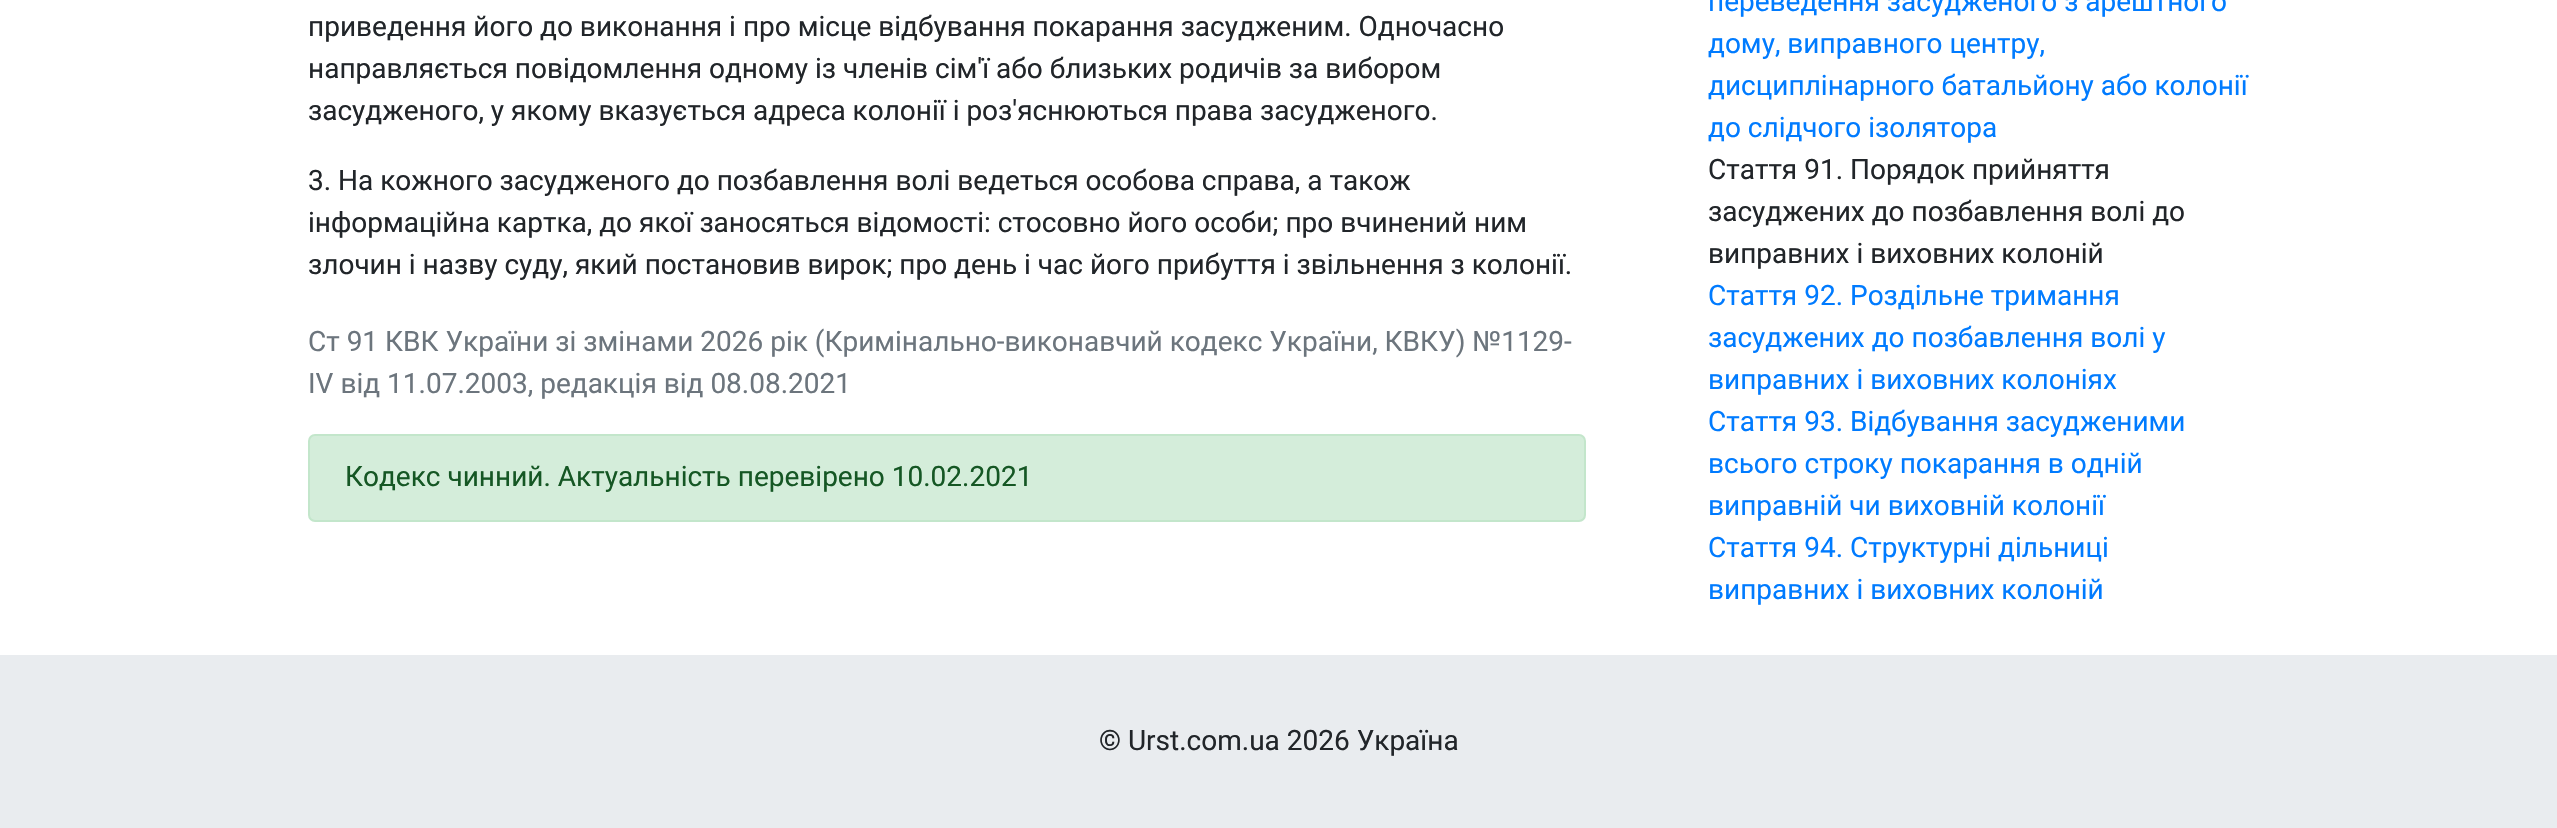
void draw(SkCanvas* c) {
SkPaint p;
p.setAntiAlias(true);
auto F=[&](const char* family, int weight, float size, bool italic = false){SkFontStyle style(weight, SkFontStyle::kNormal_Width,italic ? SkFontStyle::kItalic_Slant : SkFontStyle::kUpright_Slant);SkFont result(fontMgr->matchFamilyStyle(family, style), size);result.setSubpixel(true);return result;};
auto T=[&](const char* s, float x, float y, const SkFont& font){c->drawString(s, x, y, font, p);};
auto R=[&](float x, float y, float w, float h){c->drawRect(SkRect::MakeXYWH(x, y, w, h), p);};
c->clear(0xffffffff);
auto f1 = F("Roboto",400,28);
p.setColor(0xff212529);
T("приведення його до виконання і про місце відбування покарання засудженим. Одночасно",308,36,f1);
T("направляється повідомлення одному із членів сім'ї або близьких родичів за вибором",308,78,f1);
T("засудженого, у якому вказується адреса колонії і роз'яснюються права засудженого.",308,120,f1);
T("3. На кожного засудженого до позбавлення волі ведеться особова справа, а також",308,190,f1);
T("інформаційна картка, до якої заносяться відомості: стосовно його особи; про вчинений ним",308,232,f1);
T("злочин і назву суду, який постановив вирок; про день і час його прибуття і звільнення з колонії.",308,274,f1);
p.setColor(0xff6c757d);
T("Ст 91 КВК України зі змінами 2026 рік (Кримінально-виконавчий кодекс України, КВКУ) №1129-",308,351,f1);
T("IV від 11.07.2003, редакція від 08.08.2021",308,393,f1);
p.setColor(0xffd4edda);
c->drawRoundRect(SkRect::MakeXYWH(309,435,1276,86),6,6,p);
p.setStroke(true);
p.setStrokeWidth(2);
p.setColor(0xffc3e6cb);
c->drawRoundRect(SkRect::MakeXYWH(309,435,1276,86),6,6,p);
p.setStroke(false);
p.setColor(0xff155724);
T("Кодекс чинний. Актуальність перевірено 10.02.2021",345,486,f1);
p.setColor(0xff007bff);
T("переведення засудженого з арештного",1708,11,f1);
T("дому, виправного центру,",1708,53,f1);
T("дисциплінарного батальйону або колонії",1708,95,f1);
T("до слідчого ізолятора",1708,137,f1);
p.setColor(0xff212529);
T("Стаття 91. Порядок прийняття",1708,179,f1);
T("засуджених до позбавлення волі до",1708,221,f1);
T("виправних і виховних колоній",1708,263,f1);
p.setColor(0xff007bff);
T("Стаття 92. Роздільне тримання",1708,305,f1);
T("засуджених до позбавлення волі у",1708,347,f1);
T("виправних і виховних колоніях",1708,389,f1);
T("Стаття 93. Відбування засудженими",1708,431,f1);
T("всього строку покарання в одній",1708,473,f1);
T("виправній чи виховній колонії",1708,515,f1);
T("Стаття 94. Структурні дільниці",1708,557,f1);
T("виправних і виховних колоній",1708,599,f1);
p.setColor(0xffe9ecef);
R(0,655,2557,173);
p.setColor(0xff212529);
T("© Urst.com.ua 2026 Україна",1099,750,f1);
}
